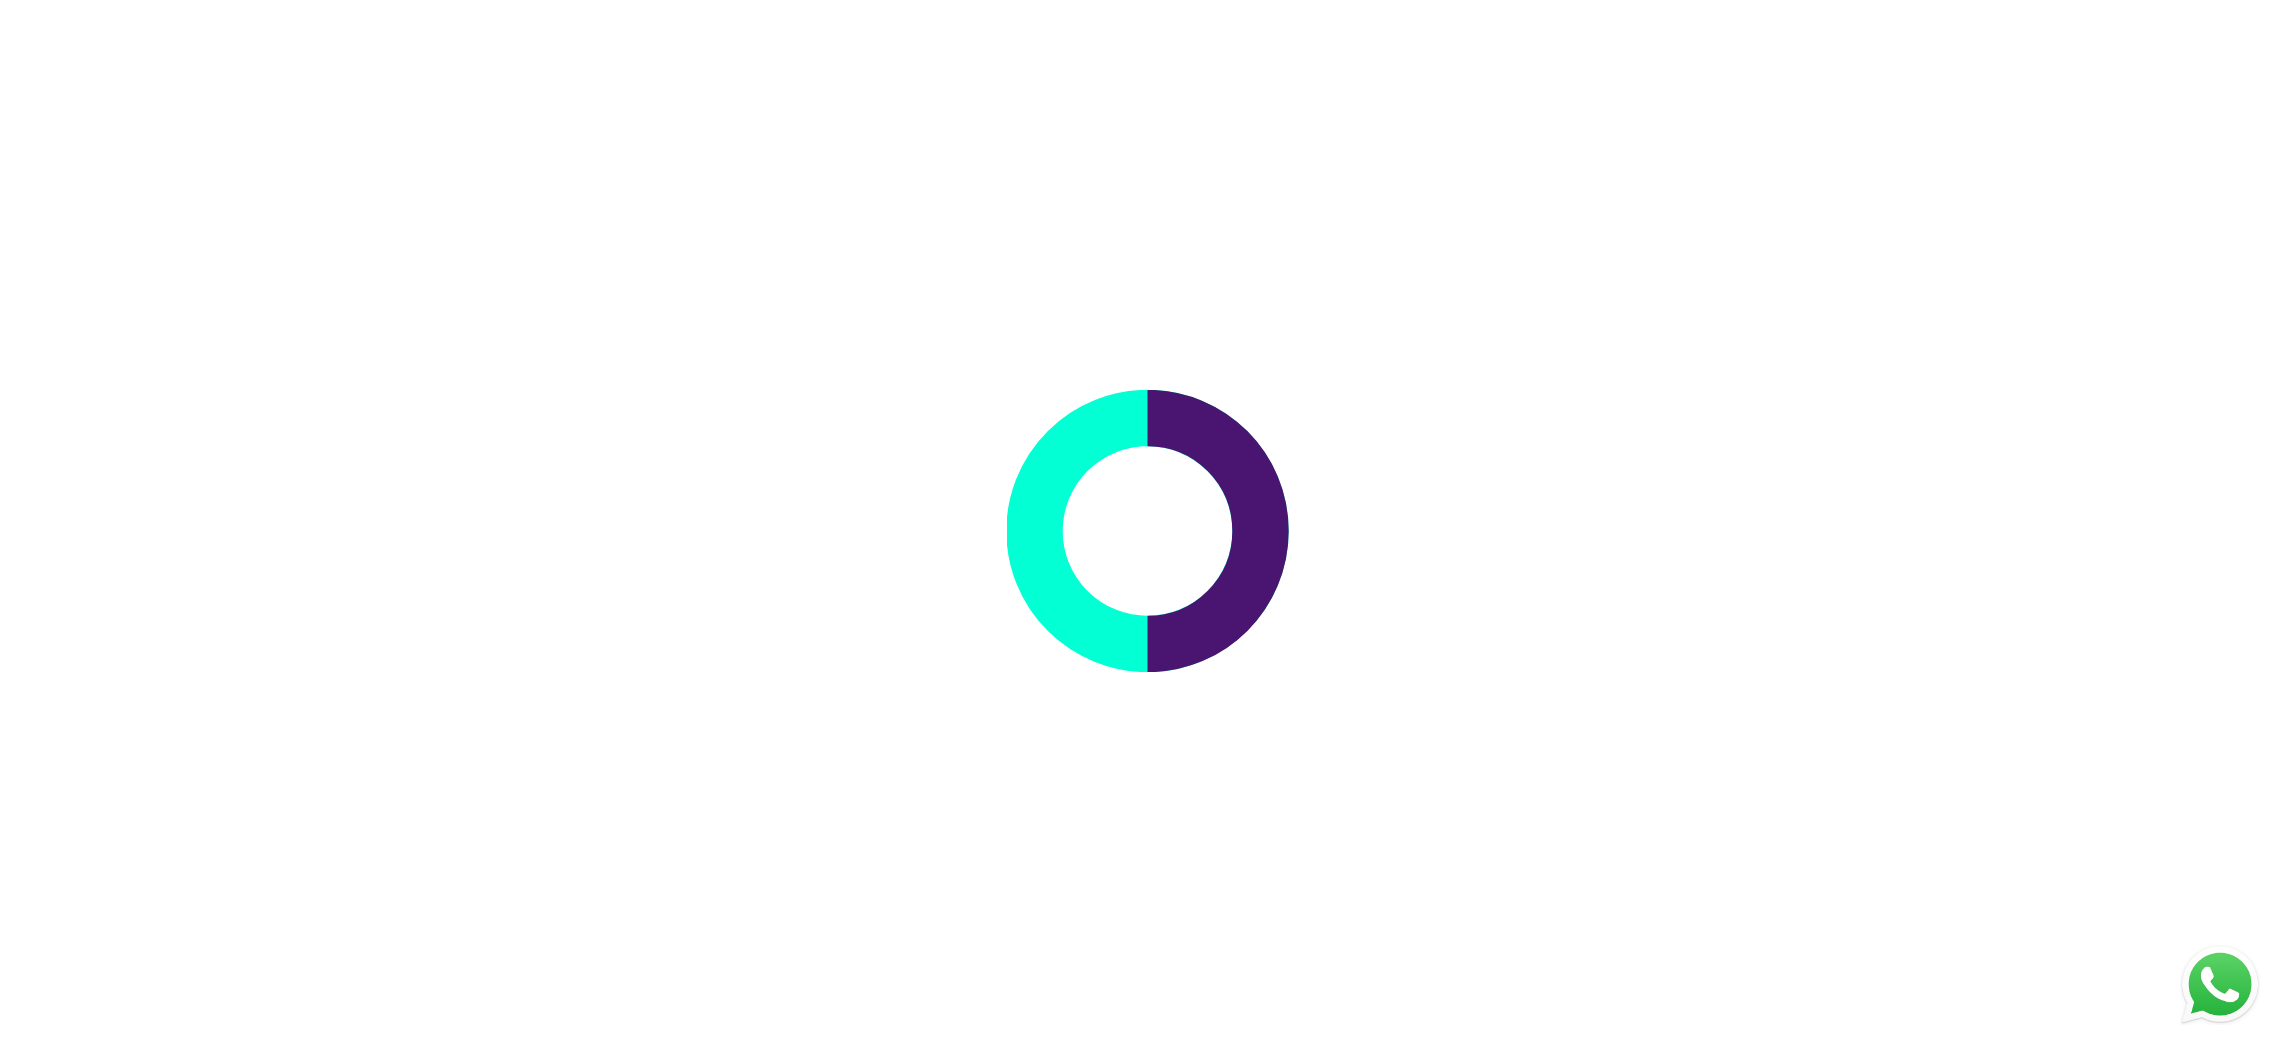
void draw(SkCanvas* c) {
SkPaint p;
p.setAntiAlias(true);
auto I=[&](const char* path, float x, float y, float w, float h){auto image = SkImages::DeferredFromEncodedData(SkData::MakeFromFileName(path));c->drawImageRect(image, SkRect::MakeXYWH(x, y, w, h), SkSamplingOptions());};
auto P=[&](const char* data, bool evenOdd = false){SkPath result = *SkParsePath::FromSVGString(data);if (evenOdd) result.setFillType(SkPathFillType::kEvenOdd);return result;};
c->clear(0xffffffff);
c->save();
c->clipRect(SkRect::MakeXYWH(1007,390,282,282));
p.setStroke(true);
p.setStrokeWidth(56.4);
p.setColor(0xff03ffd4);
c->drawCircle(1147.5,531,113,p);
p.setColor(0xff491571);
c->drawPath(P("M1147.5 418c62.5 0 113 50.5 113 113c0 62.5-50.5 113-113 113"),p);
c->restore();
I("1.png",2180,945,80,80);
}
